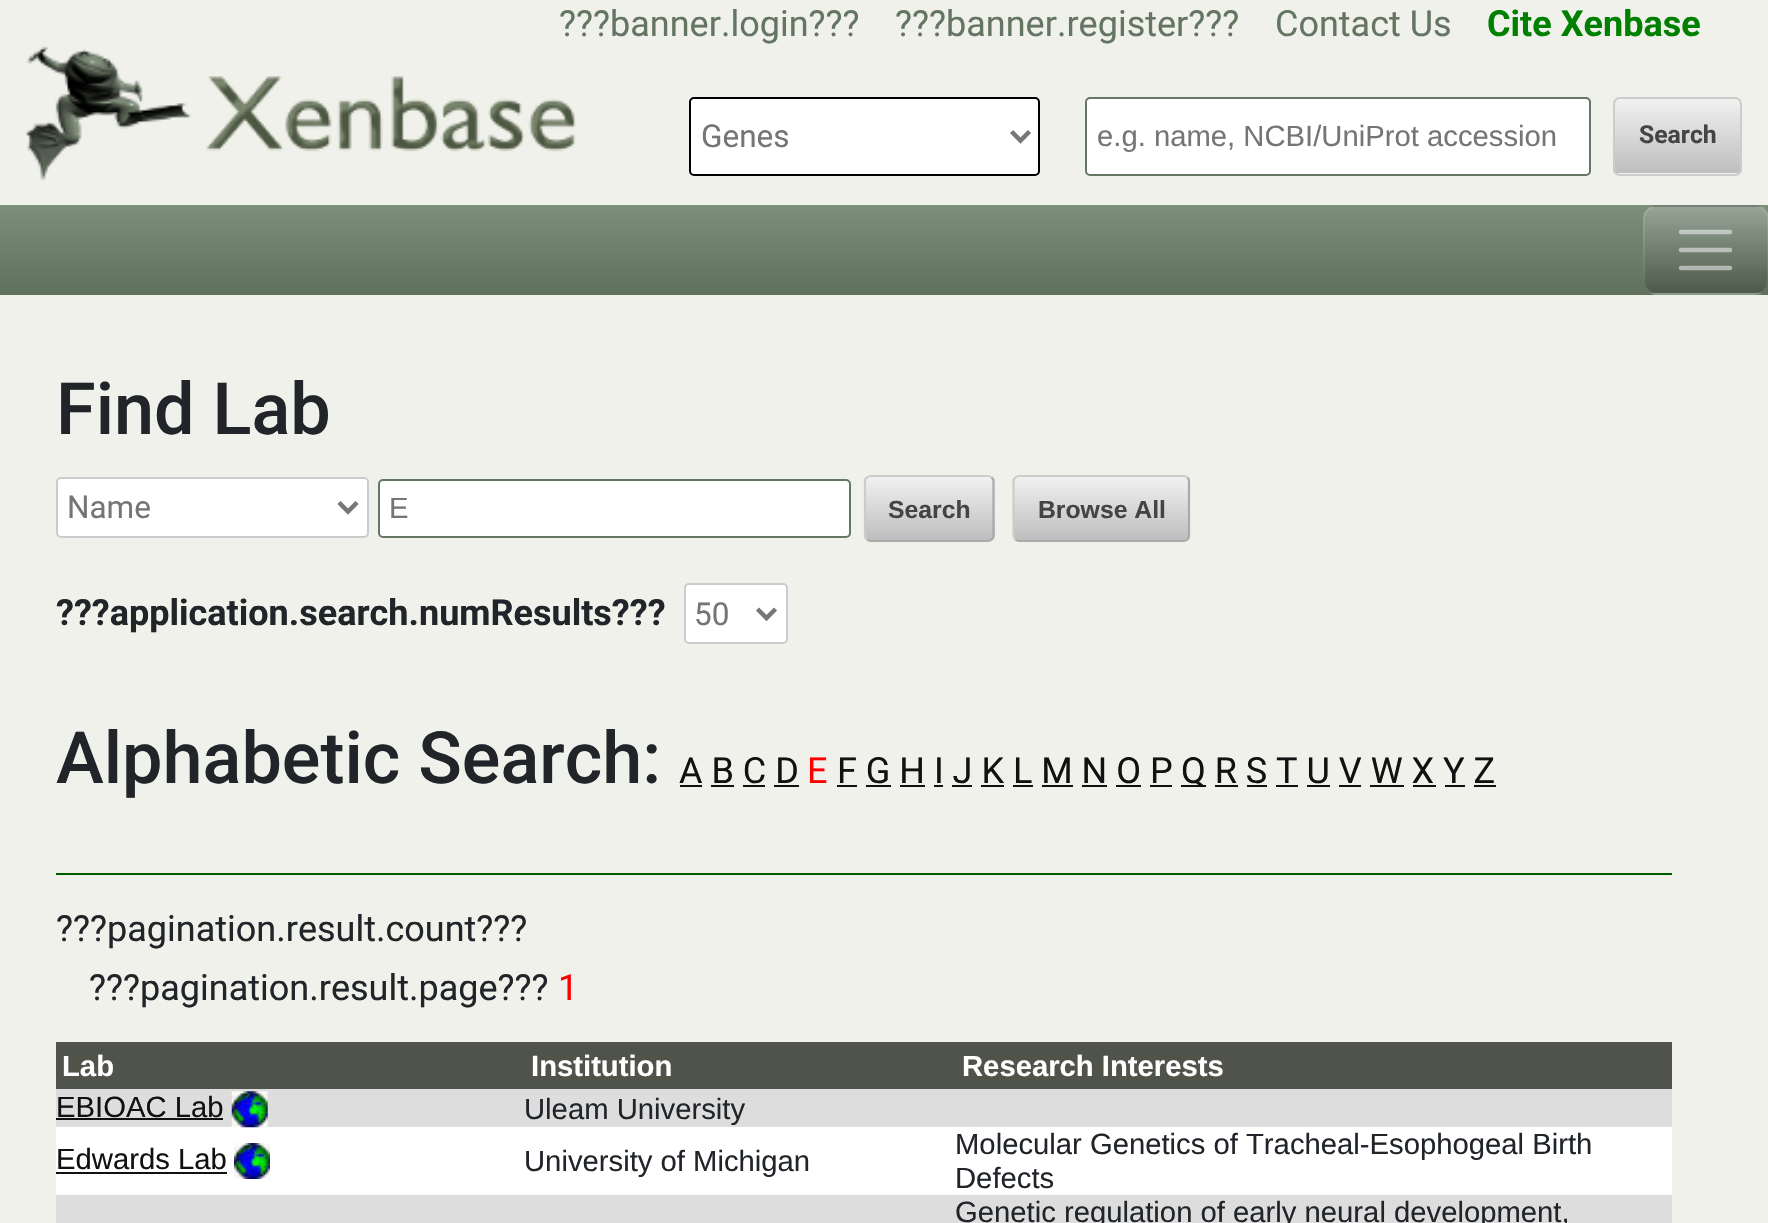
void draw(SkCanvas* c) {
SkPaint p;
p.setAntiAlias(true);
auto F=[&](const char* family, int weight, float size, bool italic = false){SkFontStyle style(weight, SkFontStyle::kNormal_Width,italic ? SkFontStyle::kItalic_Slant : SkFontStyle::kUpright_Slant);SkFont result(fontMgr->matchFamilyStyle(family, style), size);result.setSubpixel(true);return result;};
auto T=[&](const char* s, float x, float y, const SkFont& font){c->drawString(s, x, y, font, p);};
auto R=[&](float x, float y, float w, float h){c->drawRect(SkRect::MakeXYWH(x, y, w, h), p);};
auto I=[&](const char* path, float x, float y, float w, float h){auto image = SkImages::DeferredFromEncodedData(SkData::MakeFromFileName(path));c->drawImageRect(image, SkRect::MakeXYWH(x, y, w, h), SkSamplingOptions());};
auto P=[&](const char* data, bool evenOdd = false){SkPath result = *SkParsePath::FromSVGString(data);if (evenOdd) result.setFillType(SkPathFillType::kEvenOdd);return result;};
c->clear(0xfff0f1ea);
auto f1 = F("Roboto",400,36);
p.setColor(0xff647562);
T("?\077?banner.login?\077?",559,36,f1);
T("?\077?banner.register?\077?",895,36,f1);
T("Contact Us",1275,36,f1);
auto f2 = F("Roboto",700,36);
p.setColor(0xff008000);
T("Cite Xenbase",1487,36,f2);
I("1.png",25,46,551,135);
p.setColor(0xffffffff);
c->drawRoundRect(SkRect::MakeXYWH(690,98,349,77),4,4,p);
p.setStroke(true);
p.setStrokeWidth(2);
p.setColor(0xff000000);
c->drawRoundRect(SkRect::MakeXYWH(690,98,349,77),4,4,p);
p.setStrokeWidth(4.5);
p.setColor(0xff777777);
c->drawPath(P("M1011.5 131.5l9 9l9-9"),p);
auto f3 = F("Roboto",400,31.5);
p.setStroke(false);
p.setColor(0xff757575);
T("Genes",701,147,f3);
p.setColor(0xffffffff);
c->drawRoundRect(SkRect::MakeXYWH(1086,98,504,77),4,4,p);
p.setStroke(true);
p.setStrokeWidth(2);
p.setColor(0xff667764);
c->drawRoundRect(SkRect::MakeXYWH(1086,98,504,77),4,4,p);
auto f4 = F("Liberation Sans",400,29.25);
p.setStroke(false);
p.setColor(0xff757575);
T("e.g. name, NCBI/UniProt accession",1097,146,f4);
c->save();
c->clipPath(P("M1620 97h115c4 0 7 3 7 7v65c0 4-3 7-7 7h-115c-4 0-7-3-7-7v-65c0-4 3-7 7-7z"),true);
{
const SkColor colors[] = {0xfff1f1f1,0xffbebebe};
const float stops[] = {0,1};
const SkPoint ends[] = {{1677,99}, {1677,173}};
p.setShader(SkGradientShader::MakeLinear(ends, colors, stops, 2, SkTileMode::kClamp));
p.setAlpha(255);
}
R(1613,99,129,74);
{
const SkColor colors[] = {0xfff1f1f1,0xffbebebe};
const float stops[] = {0,1};
const SkPoint ends[] = {{1677,173}, {1677,248}};
p.setShader(SkGradientShader::MakeLinear(ends, colors, stops, 2, SkTileMode::kClamp));
p.setAlpha(255);
}
R(1613,173,129,3);
c->restore();
p.setStroke(true);
p.setShader(nullptr);
p.setColor(0xffcccccc);
c->drawRoundRect(SkRect::MakeXYWH(1614,98,127,77),6,6,p);
auto f5 = F("Roboto",700,24.75);
p.setStroke(false);
p.setColor(0xff444444);
T("Search",1639,143,f5);
{
const SkColor colors[] = {0xff7d8e7b,0xff5f705d};
const float stops[] = {0,1};
const SkPoint ends[] = {{884,205}, {884,295}};
p.setShader(SkGradientShader::MakeLinear(ends, colors, stops, 2, SkTileMode::kClamp));
p.setAlpha(255);
}
R(0,205,1768,90);
c->save();
c->clipPath(P("M1657 205h98c7.5 0 14 6.5 14 14v62c0 7.5-6.5 14-14 14h-98c-7.5 0-14-6.5-14-14v-62c0-7.5 6.5-14 14-14z"),true);
{
const SkColor colors[] = {0xff97a595,0xff647262};
const float stops[] = {0,1};
const SkPoint ends[] = {{1706,122}, {1706,207}};
p.setShader(SkGradientShader::MakeLinear(ends, colors, stops, 2, SkTileMode::kClamp));
p.setAlpha(255);
}
R(1643,205,125,2);
{
const SkColor colors[] = {0x33ffffff,0x33000000};
const float stops[] = {0,1};
const SkPoint ends[] = {{1706,207}, {1706,293}};
p.setShader(SkGradientShader::MakeLinear(ends, colors, stops, 2, SkTileMode::kClamp));
p.setAlpha(255);
}
R(1643,207,125,86);
{
const SkColor colors[] = {0xff7f8d7e,0xff4c5a4b};
const float stops[] = {0,1};
const SkPoint ends[] = {{1706,293}, {1706,378}};
p.setShader(SkGradientShader::MakeLinear(ends, colors, stops, 2, SkTileMode::kClamp));
p.setAlpha(255);
}
R(1643,293,125,2);
c->restore();
p.setStroke(true);
p.setShader(nullptr);
p.setColor(0x1affffff);
c->drawRoundRect(SkRect::MakeXYWH(1644,206,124,88),13,13,p);
p.setStrokeWidth(4.5);
p.setStrokeCap(SkPaint::kRound_Cap);
p.setColor(0x80ffffff);
c->drawPath(P("M1681 232h49m-49 18h49m-49 18h49"),p);
auto f6 = F("Roboto",500,72);
p.setStroke(false);
p.setColor(0xff212529);
T("Find Lab",56,434,f6);
p.setColor(0xffffffff);
c->drawRoundRect(SkRect::MakeXYWH(57,478,311,59),4,4,p);
p.setStroke(true);
p.setStrokeWidth(2);
p.setStrokeCap(SkPaint::kButt_Cap);
p.setColor(0xffcccccc);
c->drawRoundRect(SkRect::MakeXYWH(57,478,311,59),4,4,p);
p.setStrokeWidth(4.5);
p.setColor(0xff777777);
c->drawPath(P("M339 502.5l9 9l9-9"),p);
p.setStroke(false);
p.setColor(0xff757575);
T("Name",67,518,f3);
p.setColor(0xffffffff);
c->drawRoundRect(SkRect::MakeXYWH(379,480,471,57),4,4,p);
p.setStroke(true);
p.setStrokeWidth(2);
p.setColor(0xff667764);
c->drawRoundRect(SkRect::MakeXYWH(379,480,471,57),4,4,p);
p.setStroke(false);
p.setColor(0xff757575);
T("E",389,518,f4);
c->save();
c->clipPath(P("M871 475h117c4 0 7 3 7 7v53c0 4-3 7-7 7h-117c-4 0-7-3-7-7v-53c0-4 3-7 7-7z"),true);
{
const SkColor colors[] = {0xfff1f1f1,0xffbebebe};
const float stops[] = {0,1};
const SkPoint ends[] = {{929,477}, {929,540}};
p.setShader(SkGradientShader::MakeLinear(ends, colors, stops, 2, SkTileMode::kClamp));
p.setAlpha(255);
}
R(864,477,131,63);
c->restore();
p.setStroke(true);
p.setStrokeWidth(2.2);
p.setShader(nullptr);
p.setColor(0xffaaaaaa);
c->drawPath(P("M991.5 477.5c1.5 1 2 2.5 2 4v54c0 1.5-.5 3-2 4c-1 1-2.5 1.5-3.5 1.5h-117c-1.5 0-3-.5-4-1.5"),p);
p.setColor(0xffcccccc);
c->drawPath(P("M867 539.5c-1.5-1-2-2.5-2-4v-54c0-1.5 .5-3 2-4c1-1 2.5-1.5 4-1.5h117c1 0 2.5 .5 3.5 1.5"),p);
auto f7 = F("Liberation Sans",700,24.75);
p.setStroke(false);
p.setColor(0xff444444);
T("Search",888,518,f7);
c->save();
c->clipPath(P("M1020 475h163c4 0 7 3 7 7v53c0 4-3 7-7 7h-163c-4 0-7-3-7-7v-53c0-4 3-7 7-7z"),true);
{
const SkColor colors[] = {0xfff1f1f1,0xffbebebe};
const float stops[] = {0,1};
const SkPoint ends[] = {{1101,477}, {1101,540}};
p.setShader(SkGradientShader::MakeLinear(ends, colors, stops, 2, SkTileMode::kClamp));
p.setAlpha(255);
}
R(1013,477,177,63);
c->restore();
p.setStroke(true);
p.setShader(nullptr);
p.setColor(0xffaaaaaa);
c->drawPath(P("M1187.5 477.5c1 1 1.5 2.5 1.5 4v54c0 1.5-.5 3-1.5 4c-1 1-2.5 1.5-4 1.5h-164.5c-1 0-2.5-.5-3.5-1.5"),p);
p.setColor(0xffcccccc);
c->drawPath(P("M1015.5 539.5c-1.5-1-2-2.5-2-4v-54c0-1.5 .5-3 2-4c1-1 2.5-1.5 3.5-1.5h164.5c1.5 0 3 .5 4 1.5"),p);
p.setStroke(false);
p.setColor(0xff444444);
T("Browse All",1038,518,f7);
p.setColor(0xff212529);
T("?\077?application.search.numResults?\077?",56,625,f2);
p.setColor(0xffffffff);
c->drawRoundRect(SkRect::MakeXYWH(685,584,102,59),4,4,p);
p.setStroke(true);
p.setStrokeWidth(2);
p.setColor(0xffcccccc);
c->drawRoundRect(SkRect::MakeXYWH(685,584,102,59),4,4,p);
p.setStrokeWidth(4.5);
p.setColor(0xff777777);
c->drawPath(P("M757.5 609l9 9l9-9"),p);
p.setStroke(false);
p.setColor(0xff757575);
T("50",694,625,f3);
p.setColor(0xff212529);
T("Alphabetic Search:",56,783,f6);
p.setColor(0xff111111);
T("A B C D",679,783,f1);
R(680,785,22,2);
p.setColor(0xffff0000);
T("E",807,783,f1);
p.setColor(0xff111111);
T("F G H I J K L M N O P",837,783,f1);
R(837,785,20,2);
R(1181,785,25,2);
T("Q R S T U V W X Y Z",1181,783,f1);
R(711,785,23,2);
R(743,785,22,2);
R(774,785,25,2);
R(866,785,25,2);
R(900,785,25,2);
R(934,785,9,2);
R(952,785,20,2);
R(981,785,23,2);
R(1013,785,20,2);
R(1042,785,31,2);
R(1082,785,25,2);
R(1116,785,25,2);
R(1150,785,22,2);
R(1215,785,23,2);
R(1247,785,20,2);
R(1276,785,22,2);
R(1307,785,23,2);
R(1339,785,22,2);
R(1370,785,34,2);
R(1413,785,23,2);
R(1445,785,20,2);
R(1474,785,22,2);
p.setColor(0xff005c00);
R(56,873,1616,2);
p.setColor(0xff212529);
T("?\077?pagination.result.count?\077?",56,941,f1);
T("?\077?pagination.result.page?\077?",89,1000,f1);
p.setColor(0xffff0000);
T("1",558,1000,f1);
p.setColor(0xff505349);
R(56,1042,1616,47);
auto f8 = F("Liberation Sans",700,29.25);
p.setColor(0xffffffff);
T("Lab",62,1076,f8);
T("Institution",531,1076,f8);
T("Research Interests",962,1076,f8);
p.setColor(0xffdddddd);
R(56,1089,1616,38);
p.setColor(0xff111111);
T("EBIOAC Lab",56,1117,f4);
R(56,1118,167,2);
p.setColor(0xffffffff);
R(56,1127,1616,68);
I("2.png",231,1091,37,37);
p.setColor(0xff212529);
T("Uleam University",524,1119,f4);
p.setColor(0xff111111);
T("Edwards Lab",56,1169,f4);
R(56,1172,171,2);
I("3.png",234,1143,36,36);
p.setColor(0xff212529);
T("University of Michigan",524,1171,f4);
T("Molecular Genetics of Tracheal-Esophogeal Birth",955,1154,f4);
T("Defects",955,1188,f4);
p.setColor(0xffdddddd);
R(56,1195,1616,28);
p.setColor(0xff212529);
T("Genetic regulation of early neural development,",955,1222,f4);
}
